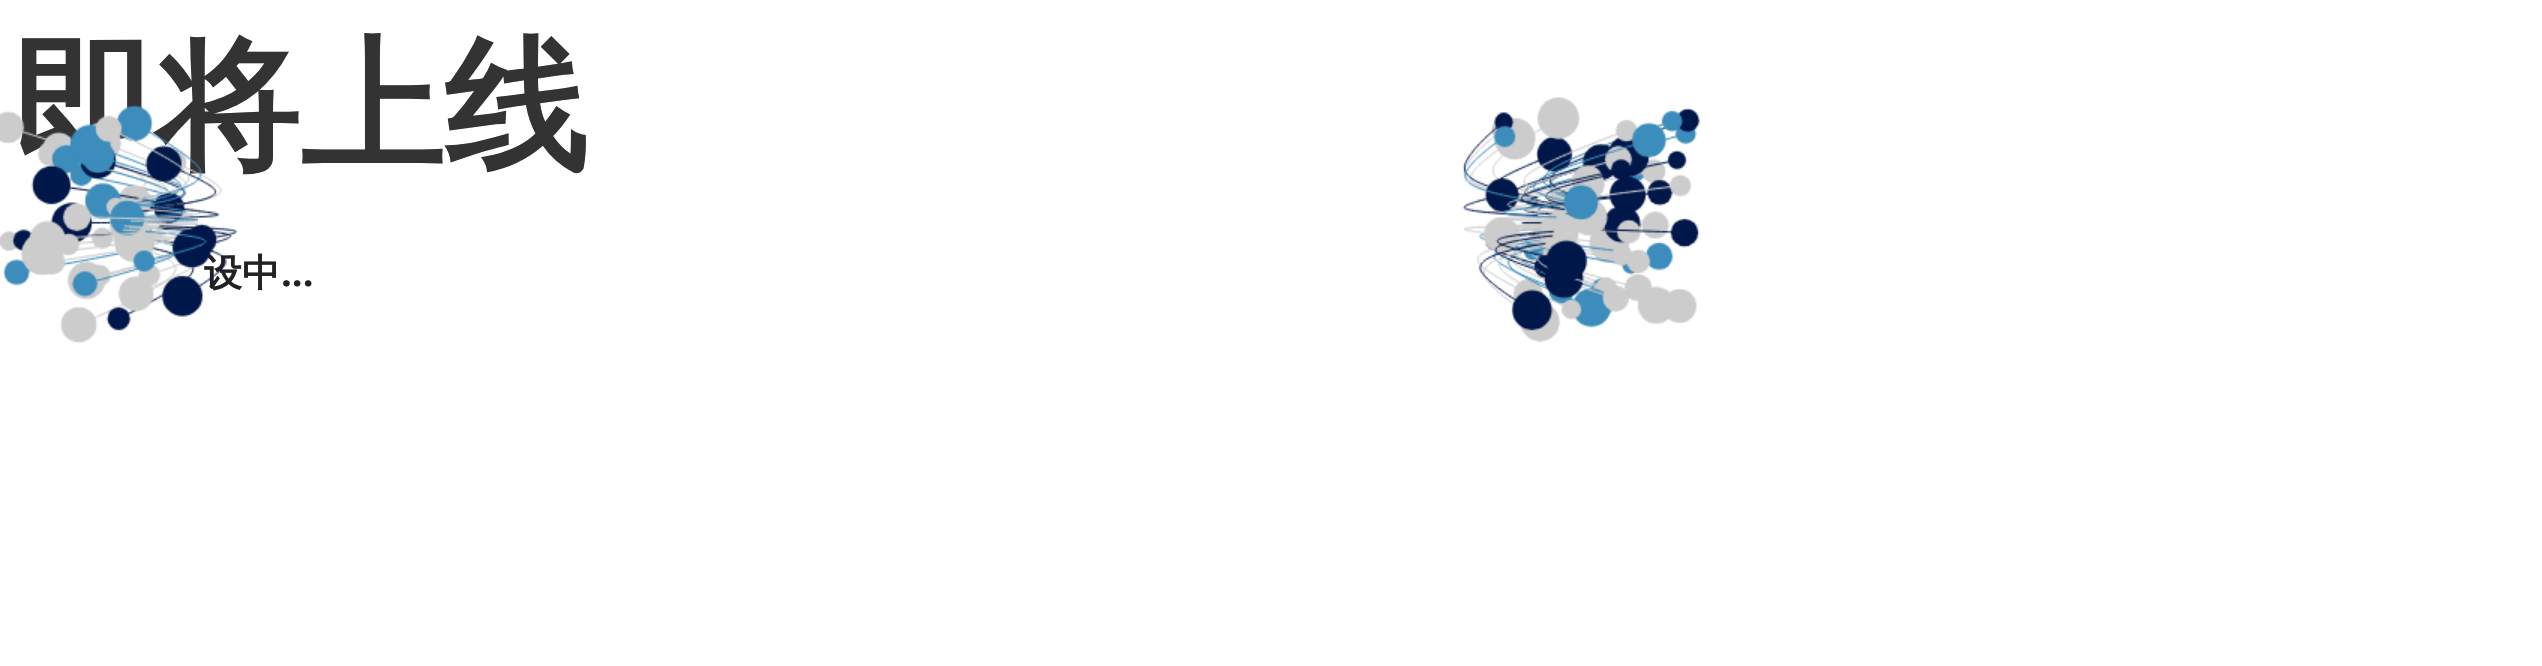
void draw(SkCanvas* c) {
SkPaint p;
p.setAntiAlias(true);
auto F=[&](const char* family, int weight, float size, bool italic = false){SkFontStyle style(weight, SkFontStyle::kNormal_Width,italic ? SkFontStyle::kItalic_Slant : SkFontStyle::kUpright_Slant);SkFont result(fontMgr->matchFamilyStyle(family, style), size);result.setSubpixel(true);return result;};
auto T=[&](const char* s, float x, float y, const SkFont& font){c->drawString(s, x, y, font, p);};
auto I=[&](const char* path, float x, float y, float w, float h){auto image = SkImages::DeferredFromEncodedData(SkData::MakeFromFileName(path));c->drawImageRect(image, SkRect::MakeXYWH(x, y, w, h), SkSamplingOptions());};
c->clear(0xffffffff);
auto f1 = F("WenQuanYi Zen Hei",700,144);
p.setColor(0xff333333);
T("即将上线",12,156,f1);
auto f2 = F("WenQuanYi Zen Hei",700,38);
p.setColor(0xff222222);
T("设中",204,286,f2);
auto f3 = F("Open Sans",700,38);
T("...",281,286,f3);
I("1.png",0,97,1700,247);
}
